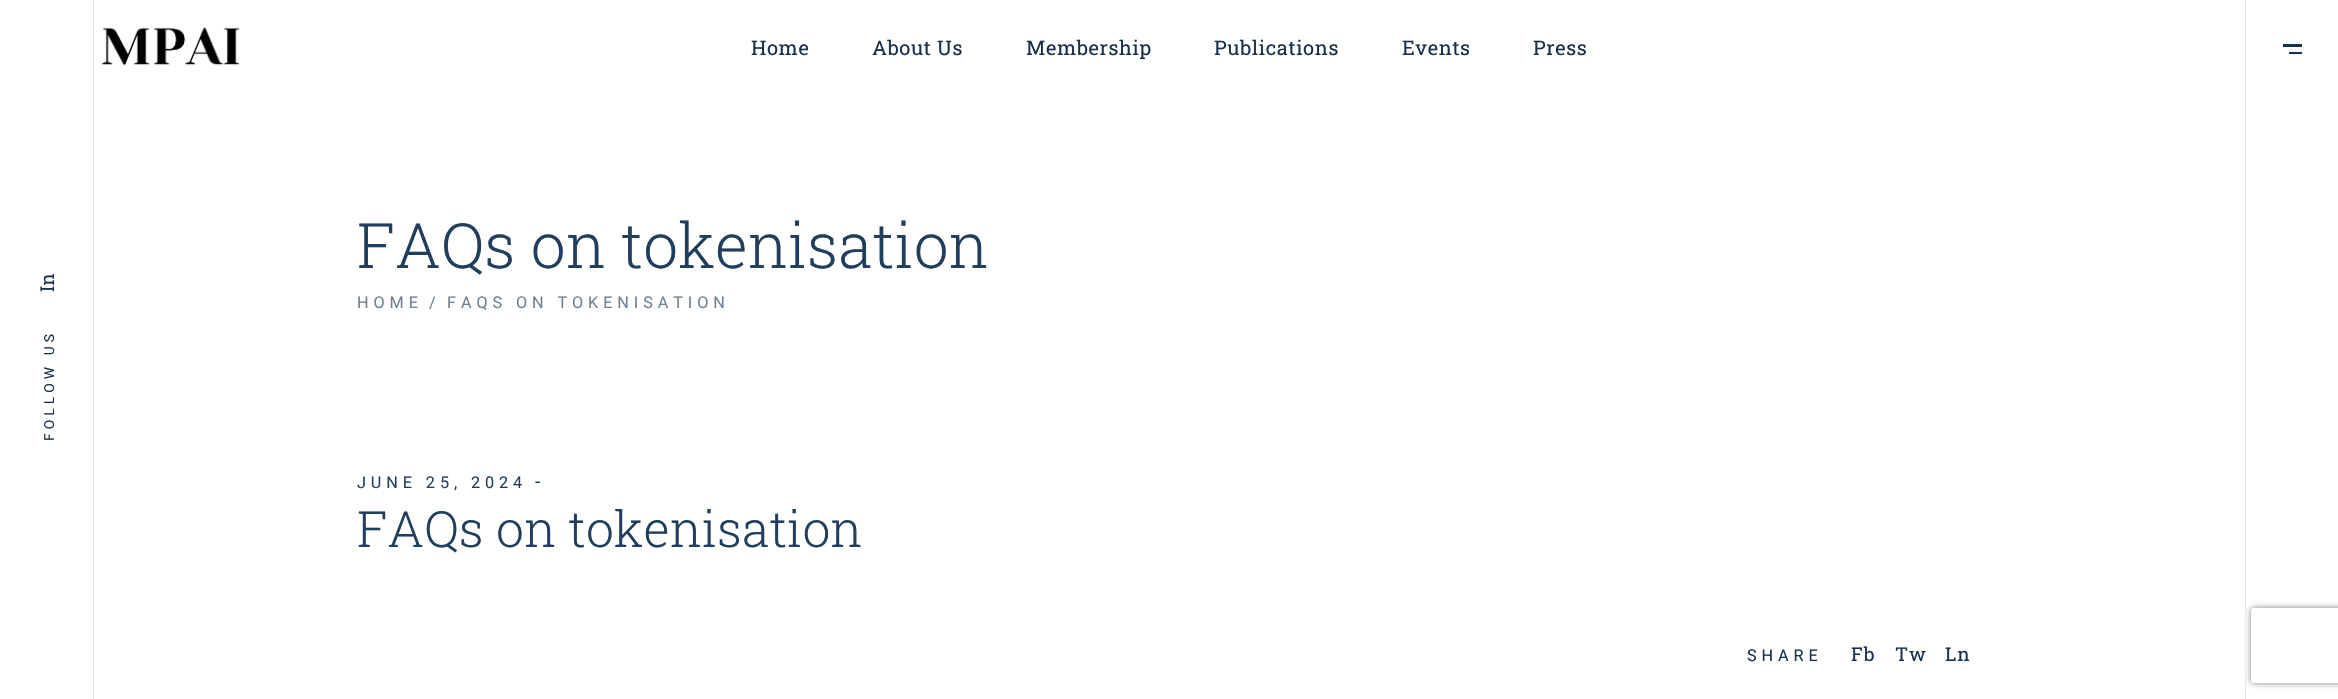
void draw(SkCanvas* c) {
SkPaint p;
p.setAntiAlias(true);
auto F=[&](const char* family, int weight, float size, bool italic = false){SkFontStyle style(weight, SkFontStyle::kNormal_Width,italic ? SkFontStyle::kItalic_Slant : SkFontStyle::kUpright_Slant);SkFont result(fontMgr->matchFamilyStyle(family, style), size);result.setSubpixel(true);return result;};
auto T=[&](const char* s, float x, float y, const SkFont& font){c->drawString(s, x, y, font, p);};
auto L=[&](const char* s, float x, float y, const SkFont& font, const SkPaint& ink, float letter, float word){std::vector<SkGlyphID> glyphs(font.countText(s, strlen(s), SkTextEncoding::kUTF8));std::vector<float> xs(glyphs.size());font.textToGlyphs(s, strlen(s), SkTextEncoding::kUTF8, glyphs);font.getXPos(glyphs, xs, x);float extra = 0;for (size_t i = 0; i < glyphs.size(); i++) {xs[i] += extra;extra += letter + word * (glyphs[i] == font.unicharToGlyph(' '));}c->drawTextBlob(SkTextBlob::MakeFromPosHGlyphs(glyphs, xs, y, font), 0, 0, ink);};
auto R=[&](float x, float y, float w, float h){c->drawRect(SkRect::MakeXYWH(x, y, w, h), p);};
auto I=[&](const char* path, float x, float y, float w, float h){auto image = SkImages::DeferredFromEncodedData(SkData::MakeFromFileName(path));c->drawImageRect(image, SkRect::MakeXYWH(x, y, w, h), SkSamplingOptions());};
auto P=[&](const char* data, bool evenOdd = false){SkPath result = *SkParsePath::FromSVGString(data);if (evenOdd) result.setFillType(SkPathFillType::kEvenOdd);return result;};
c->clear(0xffffffff);
I("1.png",101,27,139,39);
auto f1 = F("Roboto Slab",400,20);
p.setColor(0xff18304b);
L("Home",751,55,f1,p,.6,0);
L("About Us",872,55,f1,p,.6,0);
L("Membership",1026,55,f1,p,.6,0);
L("Publications",1214,55,f1,p,.6,0);
L("Events",1402,55,f1,p,.6,0);
L("Press",1533,55,f1,p,.6,0);
R(2289,52,13,2);
R(2283,44,19,3);
auto f2 = F("Roboto Slab",300,62.5);
p.setColor(0xff223e5e);
T("FAQs on tokenisation",357,268,f2);
auto f3 = F("Roboto",400,16.25);
p.setColor(0xff6f7f90);
L("HOME",357,308,f3,p,4.9,0);
L("/",429,308,f3,p,4.9,0);
L("FAQS ON TOKENISATION",447,308,f3,p,4.9,0);
auto f4 = F("Roboto Slab",400,19);
p.setColor(0xff18304b);
c->save();
c->rotate(-90,54,292);
T("In",54,292,f4);
c->restore();
auto f5 = F("Roboto",400,13.75);
c->save();
c->rotate(-90,54,441);
L("FOLLOW US",54,441,f5,p,4.1,0);
c->restore();
p.setColor(0xffe1e8ed);
R(93,0,1,699);
c->save();
c->clipPath(P("M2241 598h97v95h-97zm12.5 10h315c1.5 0 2.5 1 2.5 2.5v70c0 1.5-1 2.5-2.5 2.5h-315c-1.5 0-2.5-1-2.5-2.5v-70c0-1.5 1-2.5 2.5-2.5z",true),true);
p.setColor(0xff808080);
p.setMaskFilter(SkMaskFilter::MakeBlur(kNormal_SkBlurStyle, 3));
c->drawRoundRect(SkRect::MakeXYWH(2251,608,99,75),2.5,2.5,p);
p.setMaskFilter(nullptr);
c->restore();
p.setColor(0xffe1e8ed);
R(2245,0,1,699);
p.setColor(0xff223e5e);
L("JUNE 25, 2024",357,488,f3,p,4.9,0);
T("-",534,488,f4);
auto f6 = F("Roboto Slab",300,50);
T("FAQs on tokenisation",357,547,f6);
p.setColor(0xff18304b);
L("SHARE",1747,661,f3,p,4.9,0);
L("Fb",1851,661,f4,p,1,0);
L("Tw",1895,661,f4,p,1,0);
L("Ln",1945,661,f4,p,1,0);
}
